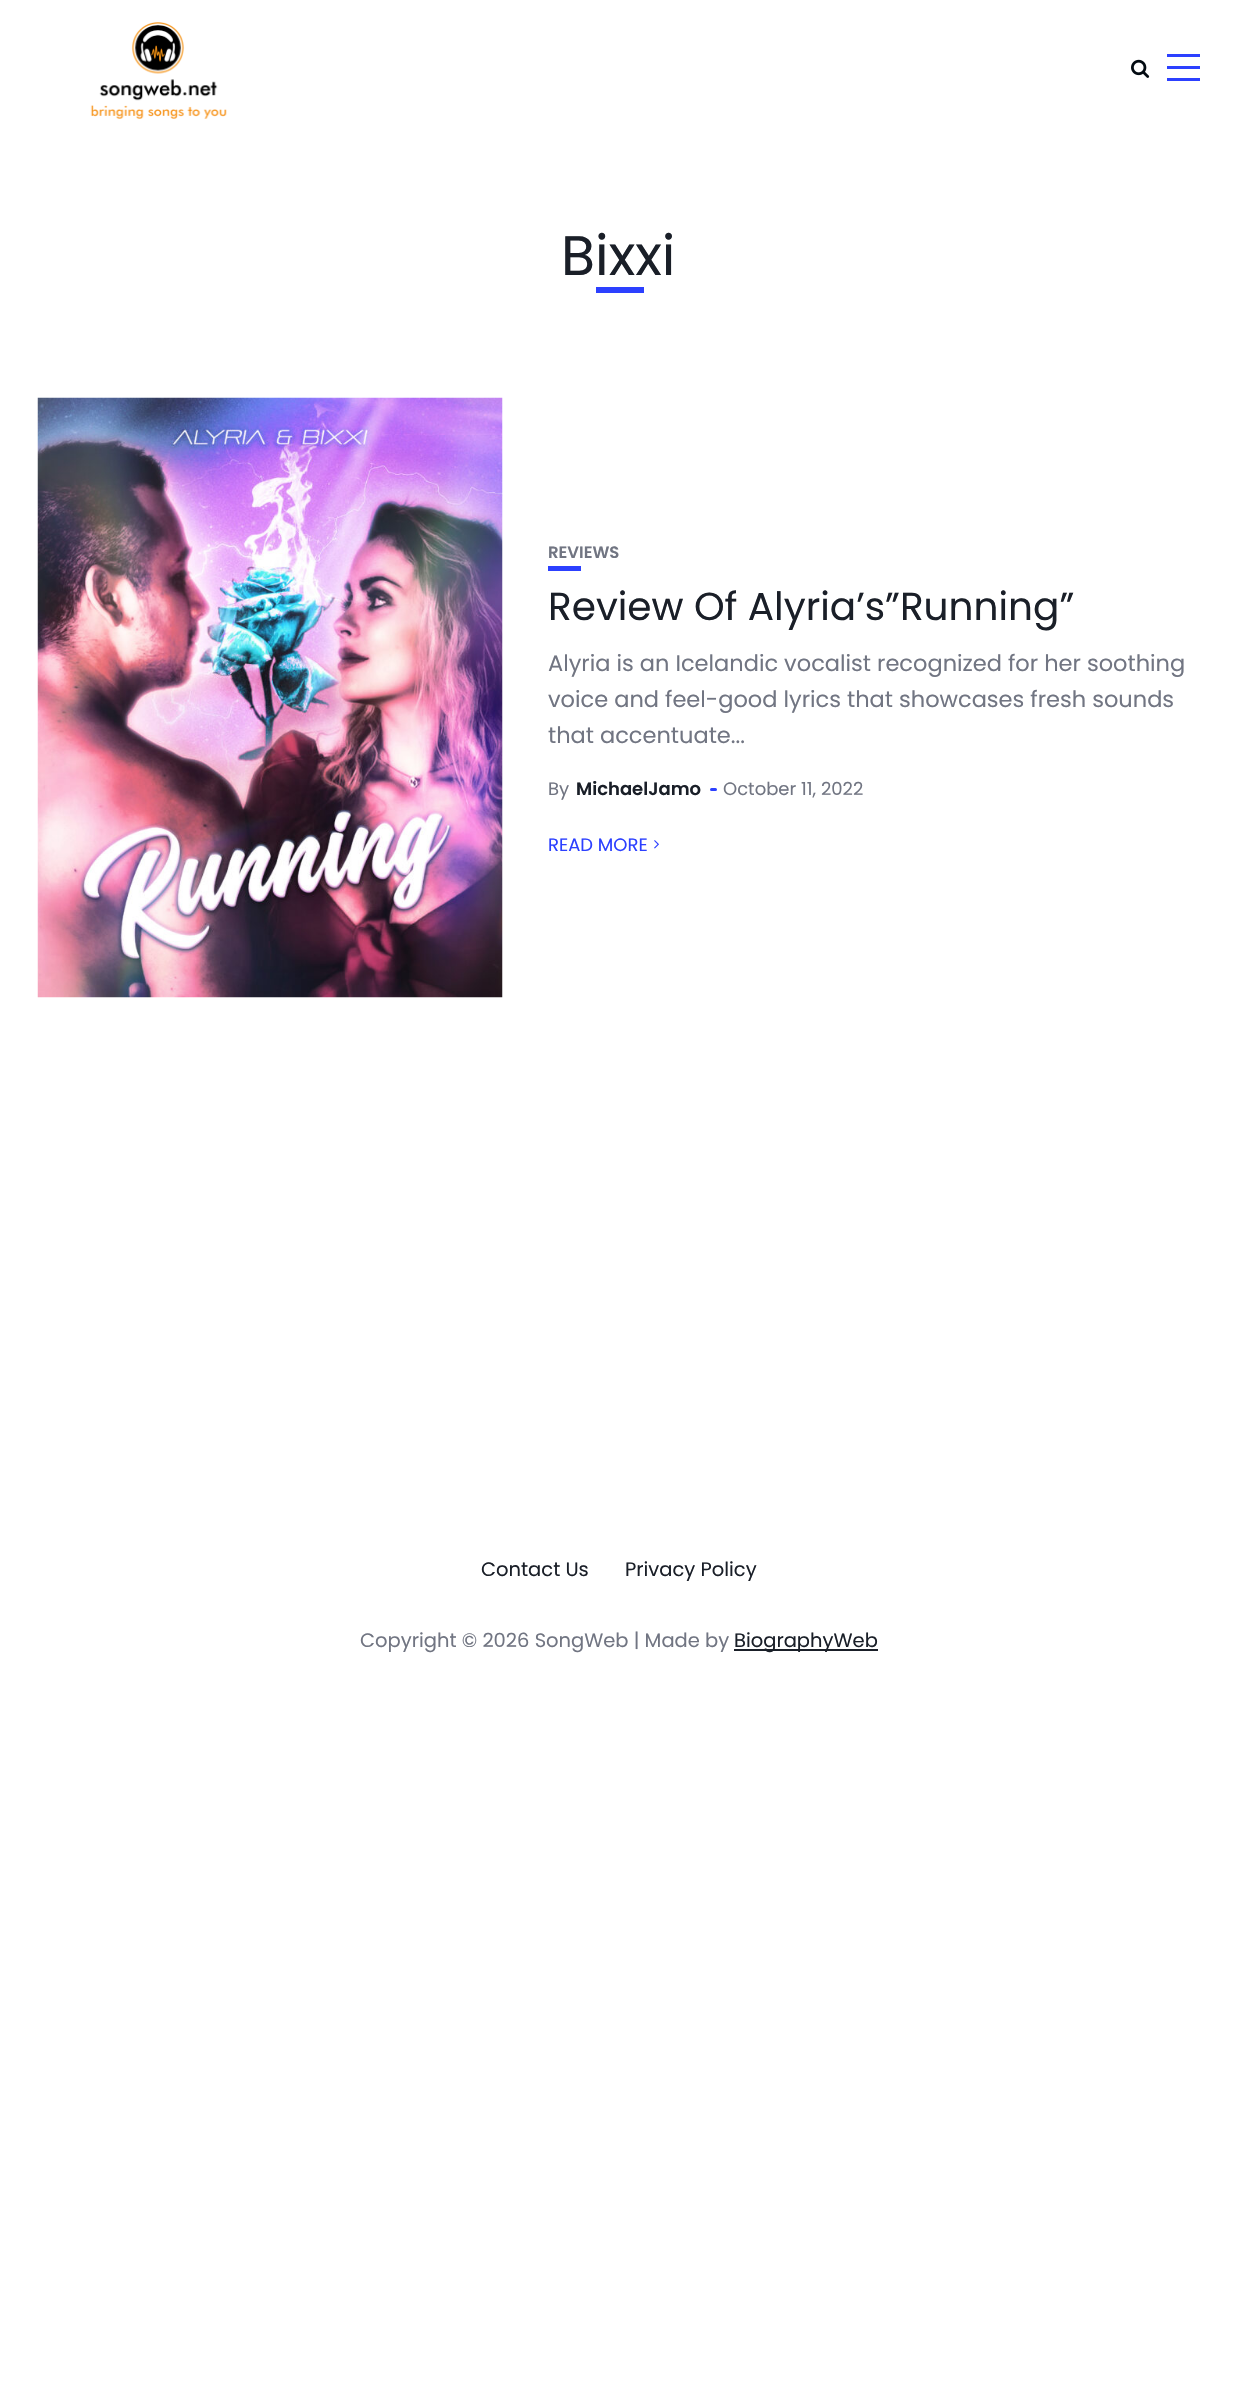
void draw(SkCanvas* c) {
SkPaint p;
p.setAntiAlias(true);
auto F=[&](const char* family, int weight, float size, bool italic = false){SkFontStyle style(weight, SkFontStyle::kNormal_Width,italic ? SkFontStyle::kItalic_Slant : SkFontStyle::kUpright_Slant);SkFont result(fontMgr->matchFamilyStyle(family, style), size);result.setSubpixel(true);return result;};
auto T=[&](const char* s, float x, float y, const SkFont& font){c->drawString(s, x, y, font, p);};
auto R=[&](float x, float y, float w, float h){c->drawRect(SkRect::MakeXYWH(x, y, w, h), p);};
auto Q=[&](float x, float y, float w, float h, float radius){c->drawRoundRect(SkRect::MakeXYWH(x, y, w, h), radius, radius, p);};
auto I=[&](const char* path, float x, float y, float w, float h){auto image = SkImages::DeferredFromEncodedData(SkData::MakeFromFileName(path));c->drawImageRect(image, SkRect::MakeXYWH(x, y, w, h), SkSamplingOptions());};
c->clear(0xffffffff);
I("1.png",90,22,137,97);
I("2.png",1131,59,19,19);
p.setColor(0xff2c40ff);
R(1167,54,33,3);
R(1167,66,33,3);
R(1167,78,33,3);
auto f1 = F("Poppins",400,55.5);
p.setColor(0xff1a1f28);
T("Bixxi",561,275,f1);
p.setColor(0xff2c40ff);
R(596,287,48,6);
I("3.png",37,397,466,601);
auto f2 = F("Poppins",600,16.5);
p.setColor(0xff717582);
T("REVIEWS",548,558,f2);
p.setColor(0xff2c40ff);
R(548,566,33,5);
auto f3 = F("Poppins",400,39);
p.setColor(0xff1a1f28);
T("Review Of Alyria’s”Running”",548,620,f3);
auto f4 = F("Poppins",400,22.5);
p.setColor(0xff717582);
T("Alyria is an Icelandic vocalist recognized for her soothing",548,671,f4);
T("voice and feel-good lyrics that showcases fresh sounds",548,707,f4);
T("that accentuate...",548,743,f4);
auto f5 = F("Poppins",400,18);
T("By",548,795,f5);
auto f6 = F("Poppins",600,18);
p.setColor(0xff1a1f28);
T("MichaelJamo",576,795,f6);
p.setColor(0xff2c40ff);
Q(710,788,7,3,1.5);
p.setColor(0xff717582);
T("October 11, 2022",723,795,f5);
p.setColor(0xff2c40ff);
T("READ MORE",548,851,f5);
I("4.png",654,840,5,9);
auto f7 = F("Poppins",400,19.5);
p.setColor(0xff1a1f28);
T("Contact Us",481,1576,f7);
T("Privacy Policy",625,1576,f7);
p.setColor(0xff717582);
T("Copyright © 2026 SongWeb | Made by",360,1647,f7);
p.setColor(0xff1a1f28);
R(734,1649,144,2);
T("BiographyWeb",734,1647,f7);
}
